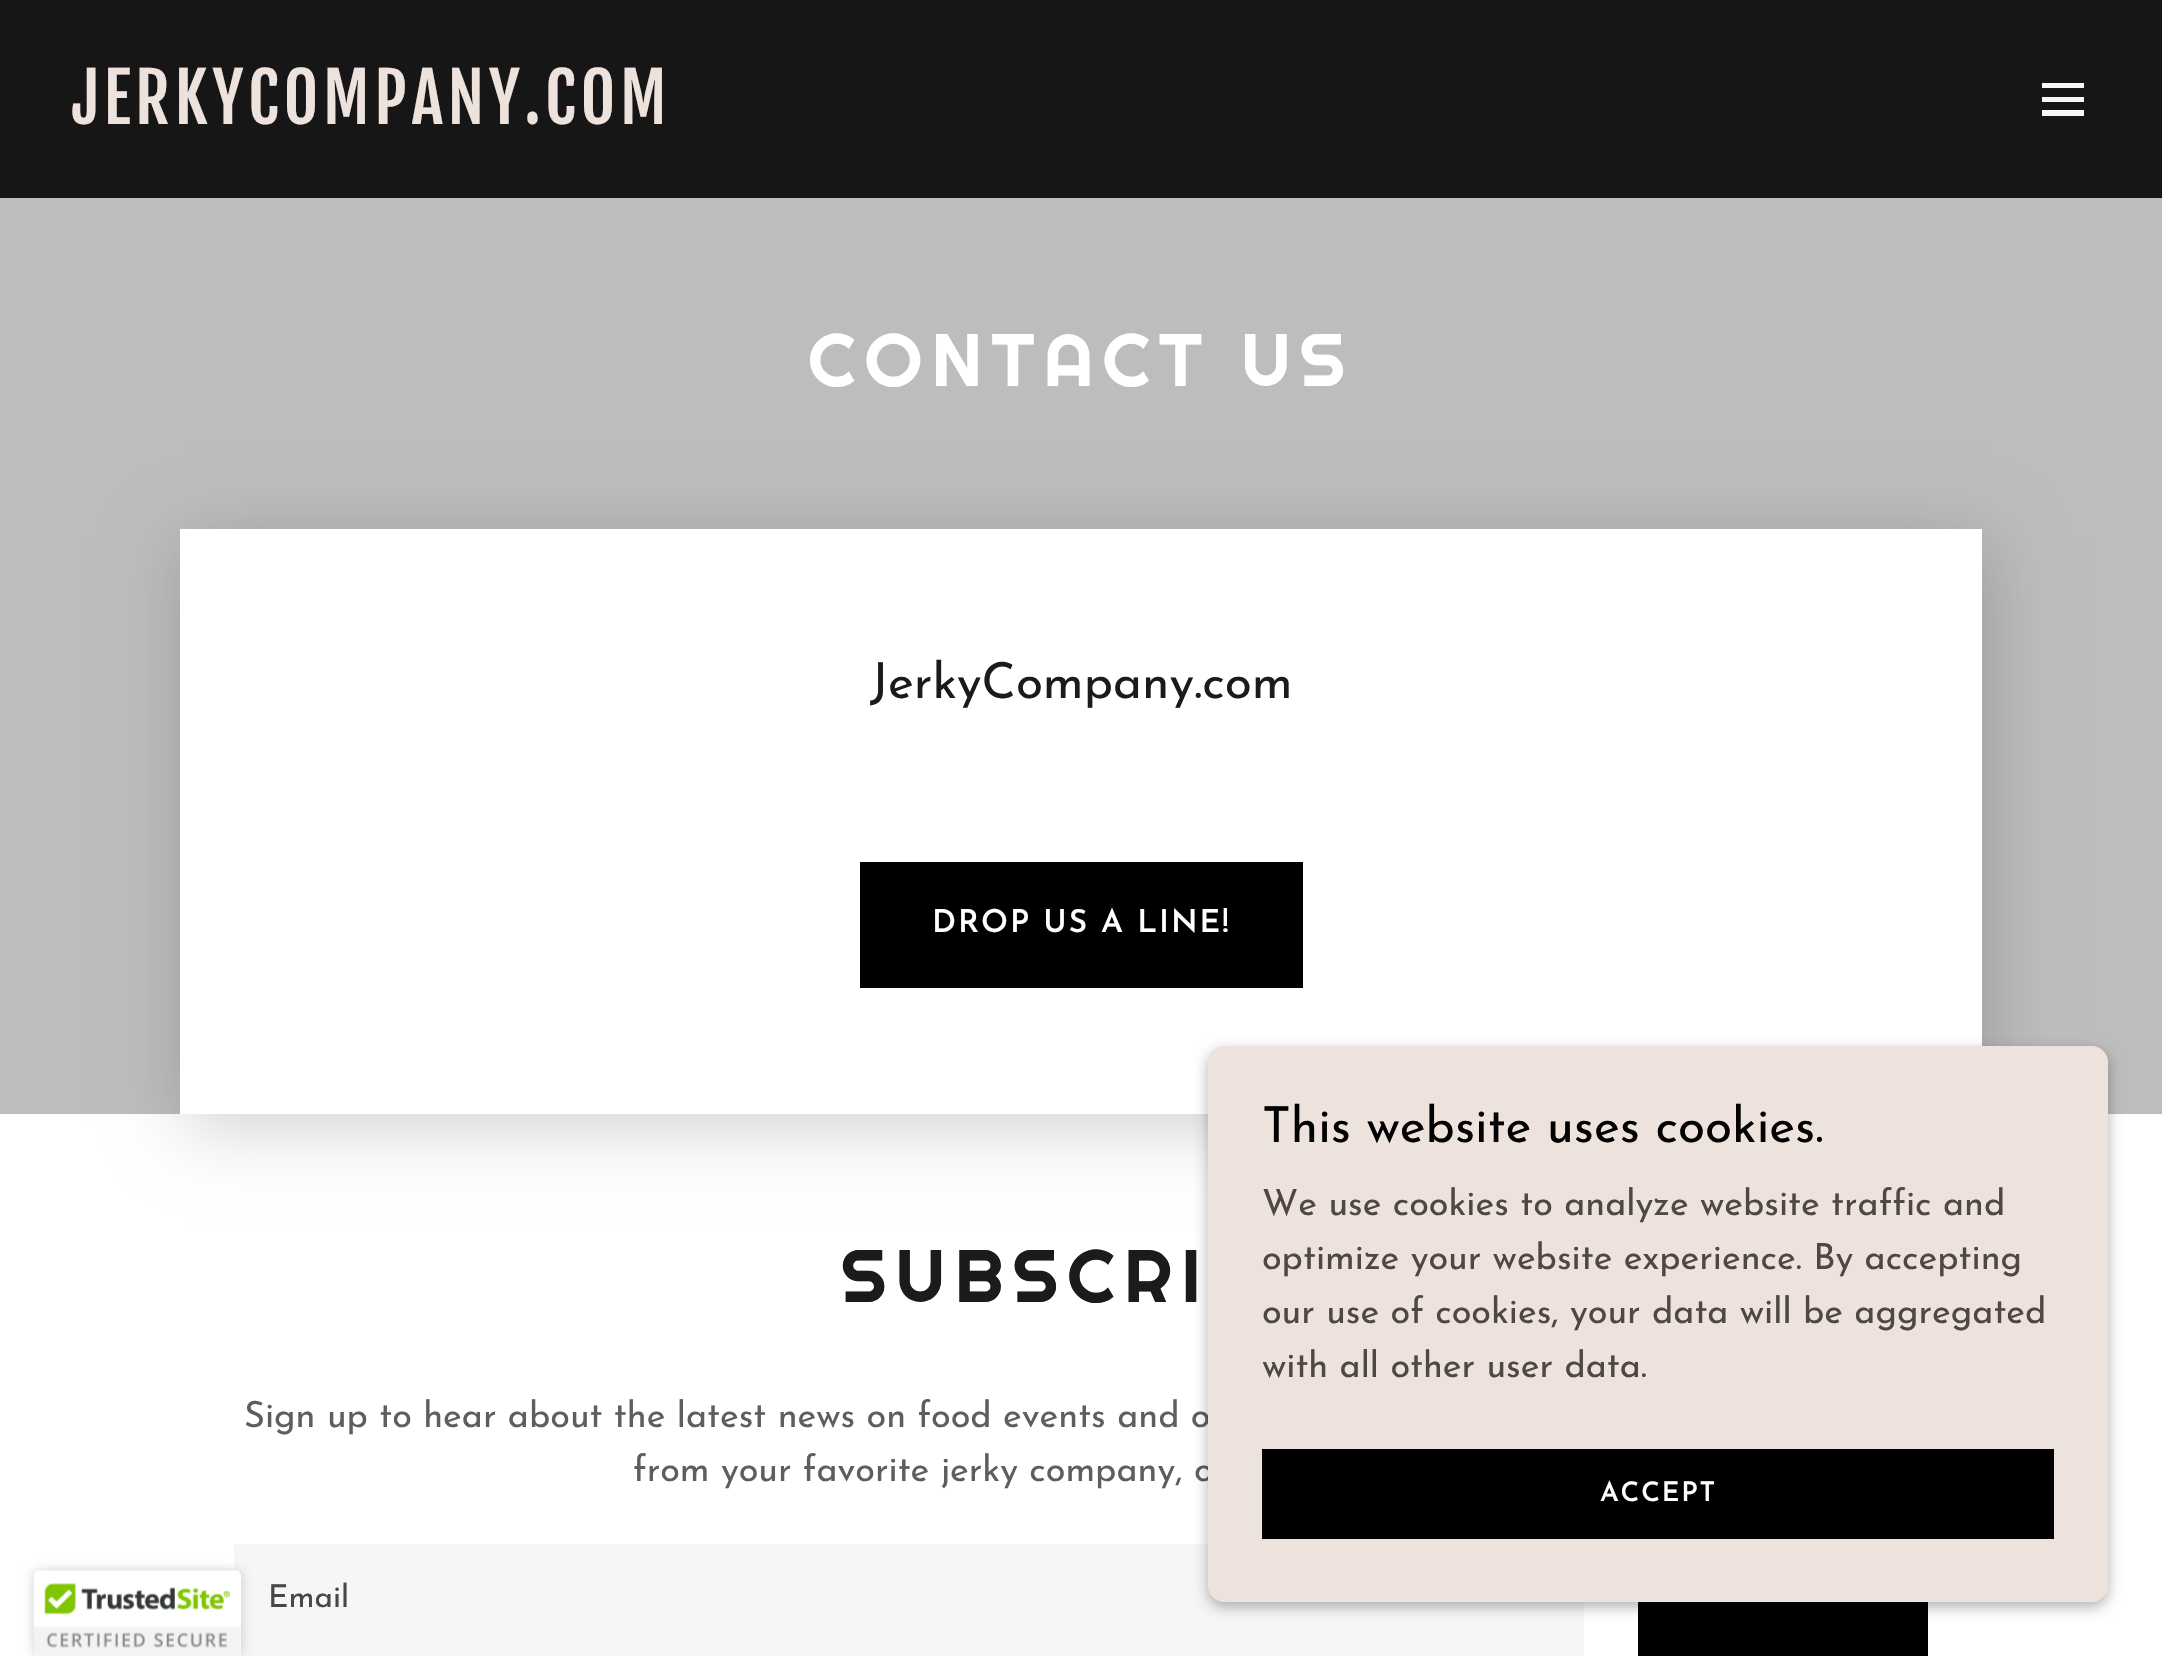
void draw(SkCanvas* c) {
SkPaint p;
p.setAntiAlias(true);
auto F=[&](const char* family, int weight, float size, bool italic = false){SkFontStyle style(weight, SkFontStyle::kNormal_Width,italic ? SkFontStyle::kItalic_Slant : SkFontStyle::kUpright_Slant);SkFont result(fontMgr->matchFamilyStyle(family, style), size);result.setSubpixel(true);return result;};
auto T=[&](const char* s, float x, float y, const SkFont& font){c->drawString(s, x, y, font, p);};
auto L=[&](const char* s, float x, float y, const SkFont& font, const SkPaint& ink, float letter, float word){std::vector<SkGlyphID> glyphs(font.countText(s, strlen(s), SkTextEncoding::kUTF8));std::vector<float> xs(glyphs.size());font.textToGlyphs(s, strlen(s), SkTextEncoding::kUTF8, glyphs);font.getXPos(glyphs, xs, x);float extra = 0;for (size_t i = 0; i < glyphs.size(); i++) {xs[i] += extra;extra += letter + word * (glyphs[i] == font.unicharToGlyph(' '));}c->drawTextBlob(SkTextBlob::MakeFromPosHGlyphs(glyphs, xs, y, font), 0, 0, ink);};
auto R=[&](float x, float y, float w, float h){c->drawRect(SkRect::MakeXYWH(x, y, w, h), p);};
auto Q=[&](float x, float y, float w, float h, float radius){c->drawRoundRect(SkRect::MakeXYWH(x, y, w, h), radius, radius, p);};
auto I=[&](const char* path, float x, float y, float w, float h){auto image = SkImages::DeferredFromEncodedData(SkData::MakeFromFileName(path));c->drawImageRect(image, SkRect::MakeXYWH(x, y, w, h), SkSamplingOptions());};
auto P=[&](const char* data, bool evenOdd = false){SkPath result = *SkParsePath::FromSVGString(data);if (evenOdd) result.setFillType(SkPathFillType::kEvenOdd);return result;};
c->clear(0xffffffff);
p.setColor(0xff161616);
R(0,0,2162,198);
auto f1 = F("Fjalla One",400,67.5);
p.setColor(0xffeee2dc);
L("JERKYCOMPANY.COM",72,124,f1,p,4.5,0);
p.setColor(0xfff7f7f7);
R(2042,83,42,5);
R(2042,97,42,5);
R(2042,110,42,6);
p.setColor(0xffbdbdbd);
R(0,198,2162,916);
auto f2 = F("Righteous",400,74.25);
p.setColor(0xffffffff);
L("CONTACT US",808,386,f2,p,9,0);
p.setColor(0x2e000000);
p.setMaskFilter(SkMaskFilter::MakeBlur(kNormal_SkBlurStyle, 34));
c->drawRect(SkRect::MakeXYWH(185,542,1802,585),p);
p.setMaskFilter(nullptr);
p.setColor(0xffffffff);
R(180,529,1802,585);
auto f3 = F("Josefin Sans",400,49.5);
p.setColor(0xff1b1b1b);
T("JerkyCompany.com",870,698,f3);
p.setColor(0xff000000);
R(860,862,443,126);
auto f4 = F("Josefin Sans",600,31.5);
p.setColor(0xffffffff);
L("DROP US A LINE!",932,932,f4,p,2,0);
p.setColor(0xff1b1b1b);
L("SUBSCRI",841,1302,f2,p,9,0);
auto f5 = F("Josefin Sans",400,36);
p.setColor(0xff5e5e5e);
T("Sign up to hear about the latest news on food events and o",244,1427,f5);
T("from your favorite jerky company, o",633,1481,f5);
p.setColor(0xfff6f6f6);
R(234,1544,1350,112);
auto f6 = F("Josefin Sans",400,31.5);
p.setColor(0xff474747);
T("Email",268,1607,f6);
p.setColor(0xff000000);
R(1638,1602,290,54);
p.setColor(0x4d000000);
p.setMaskFilter(SkMaskFilter::MakeBlur(kNormal_SkBlurStyle, 7));
c->drawRoundRect(SkRect::MakeXYWH(1208,1051,900,556),16,16,p);
p.setMaskFilter(nullptr);
p.setColor(0xffeee2dc);
Q(1208,1046,900,556,16);
p.setColor(0xff020202);
T("This website uses cookies.",1262,1142,f3);
p.setColor(0xff4e4743);
T("We use cookies to analyze website traffic and",1262,1215,f5);
T("optimize your website experience. By accepting",1262,1269,f5);
T("our use of cookies, your data will be aggregated",1262,1323,f5);
T("with all other user data.",1262,1377,f5);
p.setColor(0xff000000);
R(1262,1449,792,90);
auto f7 = F("Josefin Sans",600,27);
p.setColor(0xffffffff);
L("ACCEPT",1600,1501,f7,p,1.75,0);
p.setColor(0x33000000);
p.setMaskFilter(SkMaskFilter::MakeBlur(kNormal_SkBlurStyle, 5.5));
c->drawRoundRect(SkRect::MakeXYWH(34,1571,207,85),5,5,p);
p.setMaskFilter(nullptr);
p.setColor(0xffffffff);
c->drawPath(P("M39 1571h197c3 0 5 2 5 5v80h-207v-80c0-3 2-5 5-5z"),p);
I("1.png",33,1570,208,86);
}
